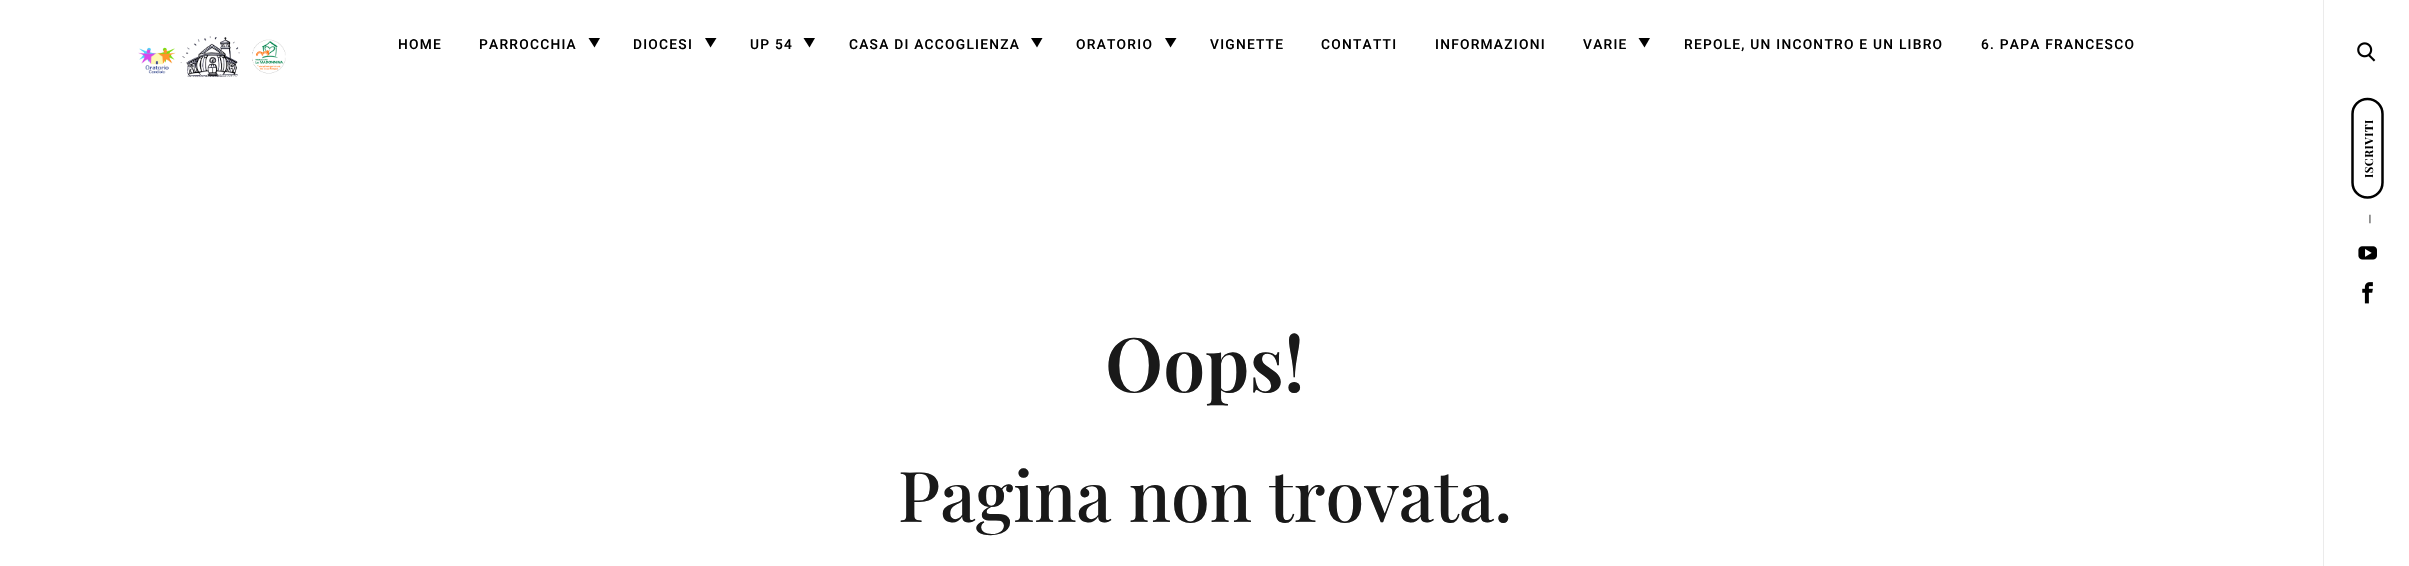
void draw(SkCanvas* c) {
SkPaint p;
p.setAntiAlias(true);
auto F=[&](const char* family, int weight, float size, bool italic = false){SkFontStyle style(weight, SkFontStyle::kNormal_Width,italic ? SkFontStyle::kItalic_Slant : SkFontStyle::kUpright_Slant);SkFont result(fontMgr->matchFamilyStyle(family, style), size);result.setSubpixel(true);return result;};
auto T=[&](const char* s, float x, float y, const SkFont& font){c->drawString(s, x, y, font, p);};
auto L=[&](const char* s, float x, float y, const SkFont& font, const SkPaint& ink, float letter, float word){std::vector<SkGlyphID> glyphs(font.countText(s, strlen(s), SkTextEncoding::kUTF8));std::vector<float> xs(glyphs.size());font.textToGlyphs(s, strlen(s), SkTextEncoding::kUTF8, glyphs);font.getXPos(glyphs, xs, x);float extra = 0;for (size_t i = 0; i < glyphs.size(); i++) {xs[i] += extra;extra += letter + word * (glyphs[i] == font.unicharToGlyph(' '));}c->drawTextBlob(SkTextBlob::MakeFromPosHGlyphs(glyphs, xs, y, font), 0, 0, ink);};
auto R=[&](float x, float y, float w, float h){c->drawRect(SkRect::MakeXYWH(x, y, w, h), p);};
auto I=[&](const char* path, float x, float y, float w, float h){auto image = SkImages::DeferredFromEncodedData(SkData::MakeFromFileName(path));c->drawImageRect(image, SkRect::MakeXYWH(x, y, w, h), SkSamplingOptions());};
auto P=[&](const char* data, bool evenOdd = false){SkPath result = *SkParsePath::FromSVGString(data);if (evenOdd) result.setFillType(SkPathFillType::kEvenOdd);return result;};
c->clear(0xffffffff);
I("1.png",138,36,148,42);
auto f1 = F("Roboto",500,13.75);
p.setColor(0xff000000);
L("HOME",398,49,f1,p,1.25,0);
L("PARROCCHIA",479,49,f1,p,1.25,0);
c->drawPath(P("M600 38l-5.5 9.5l-6-9.5z"),p);
L("DIOCESI",633,49,f1,p,1.25,0);
c->drawPath(P("M716.5 38l-6 9.5l-5.5-9.5z"),p);
L("UP 54",750,49,f1,p,1.25,0);
c->drawPath(P("M815 38l-5.5 9.5l-6-9.5z"),p);
L("CASA DI ACCOGLIENZA",849,49,f1,p,1.25,0);
c->drawPath(P("M1042.5 38l-5.5 9.5l-6-9.5z"),p);
L("ORATORIO",1076,49,f1,p,1.25,0);
c->drawPath(P("M1176.5 38l-6 9.5l-5.5-9.5z"),p);
L("VIGNETTE",1210,49,f1,p,1.25,0);
L("CONTATTI",1321,49,f1,p,1.25,0);
L("INFORMAZIONI",1435,49,f1,p,1.25,0);
L("VARIE",1583,49,f1,p,1.25,0);
c->drawPath(P("M1650 38l-5.5 9.5l-6-9.5z"),p);
L("REPOLE, UN INCONTRO E UN LIBRO",1684,49,f1,p,1.25,0);
L("6. PAPA FRANCESCO",1981,49,f1,p,1.25,0);
auto f2 = F("Playfair Display",600,75);
p.setColor(0xff191919);
T("Oops!",1105,392,f2);
auto f3 = F("Playfair Display",500,70);
T("Pagina non trovata.",898,522,f3);
p.setColor(0xffebebeb);
R(2323,0,1,566);
I("2.png",2357,42,19,20);
p.setStroke(true);
p.setStrokeWidth(2.5);
p.setColor(0xff000000);
c->drawPath(P("M2352.5 182.5v-68.5c0-8.5 6.5-15 15-15c8.5 0 15 6.5 15 15v68.5c0 8.5-6.5 15-15 15c-8.5 0-15-6.5-15-15z"),p);
auto f4 = F("Playfair Display",700,11.25);
p.setStroke(false);
c->save();
c->rotate(-90,2373,178);
L("ISCRIVITI",2373,178,f4,p,.5,0);
c->restore();
auto f5 = F("Playfair Display",500,11.25);
c->save();
c->rotate(-90,2373,224);
L("—",2373,224,f5,p,.5,0);
c->restore();
I("3.png",2358,246,19,14);
I("4.png",2362,282,11,22);
}
